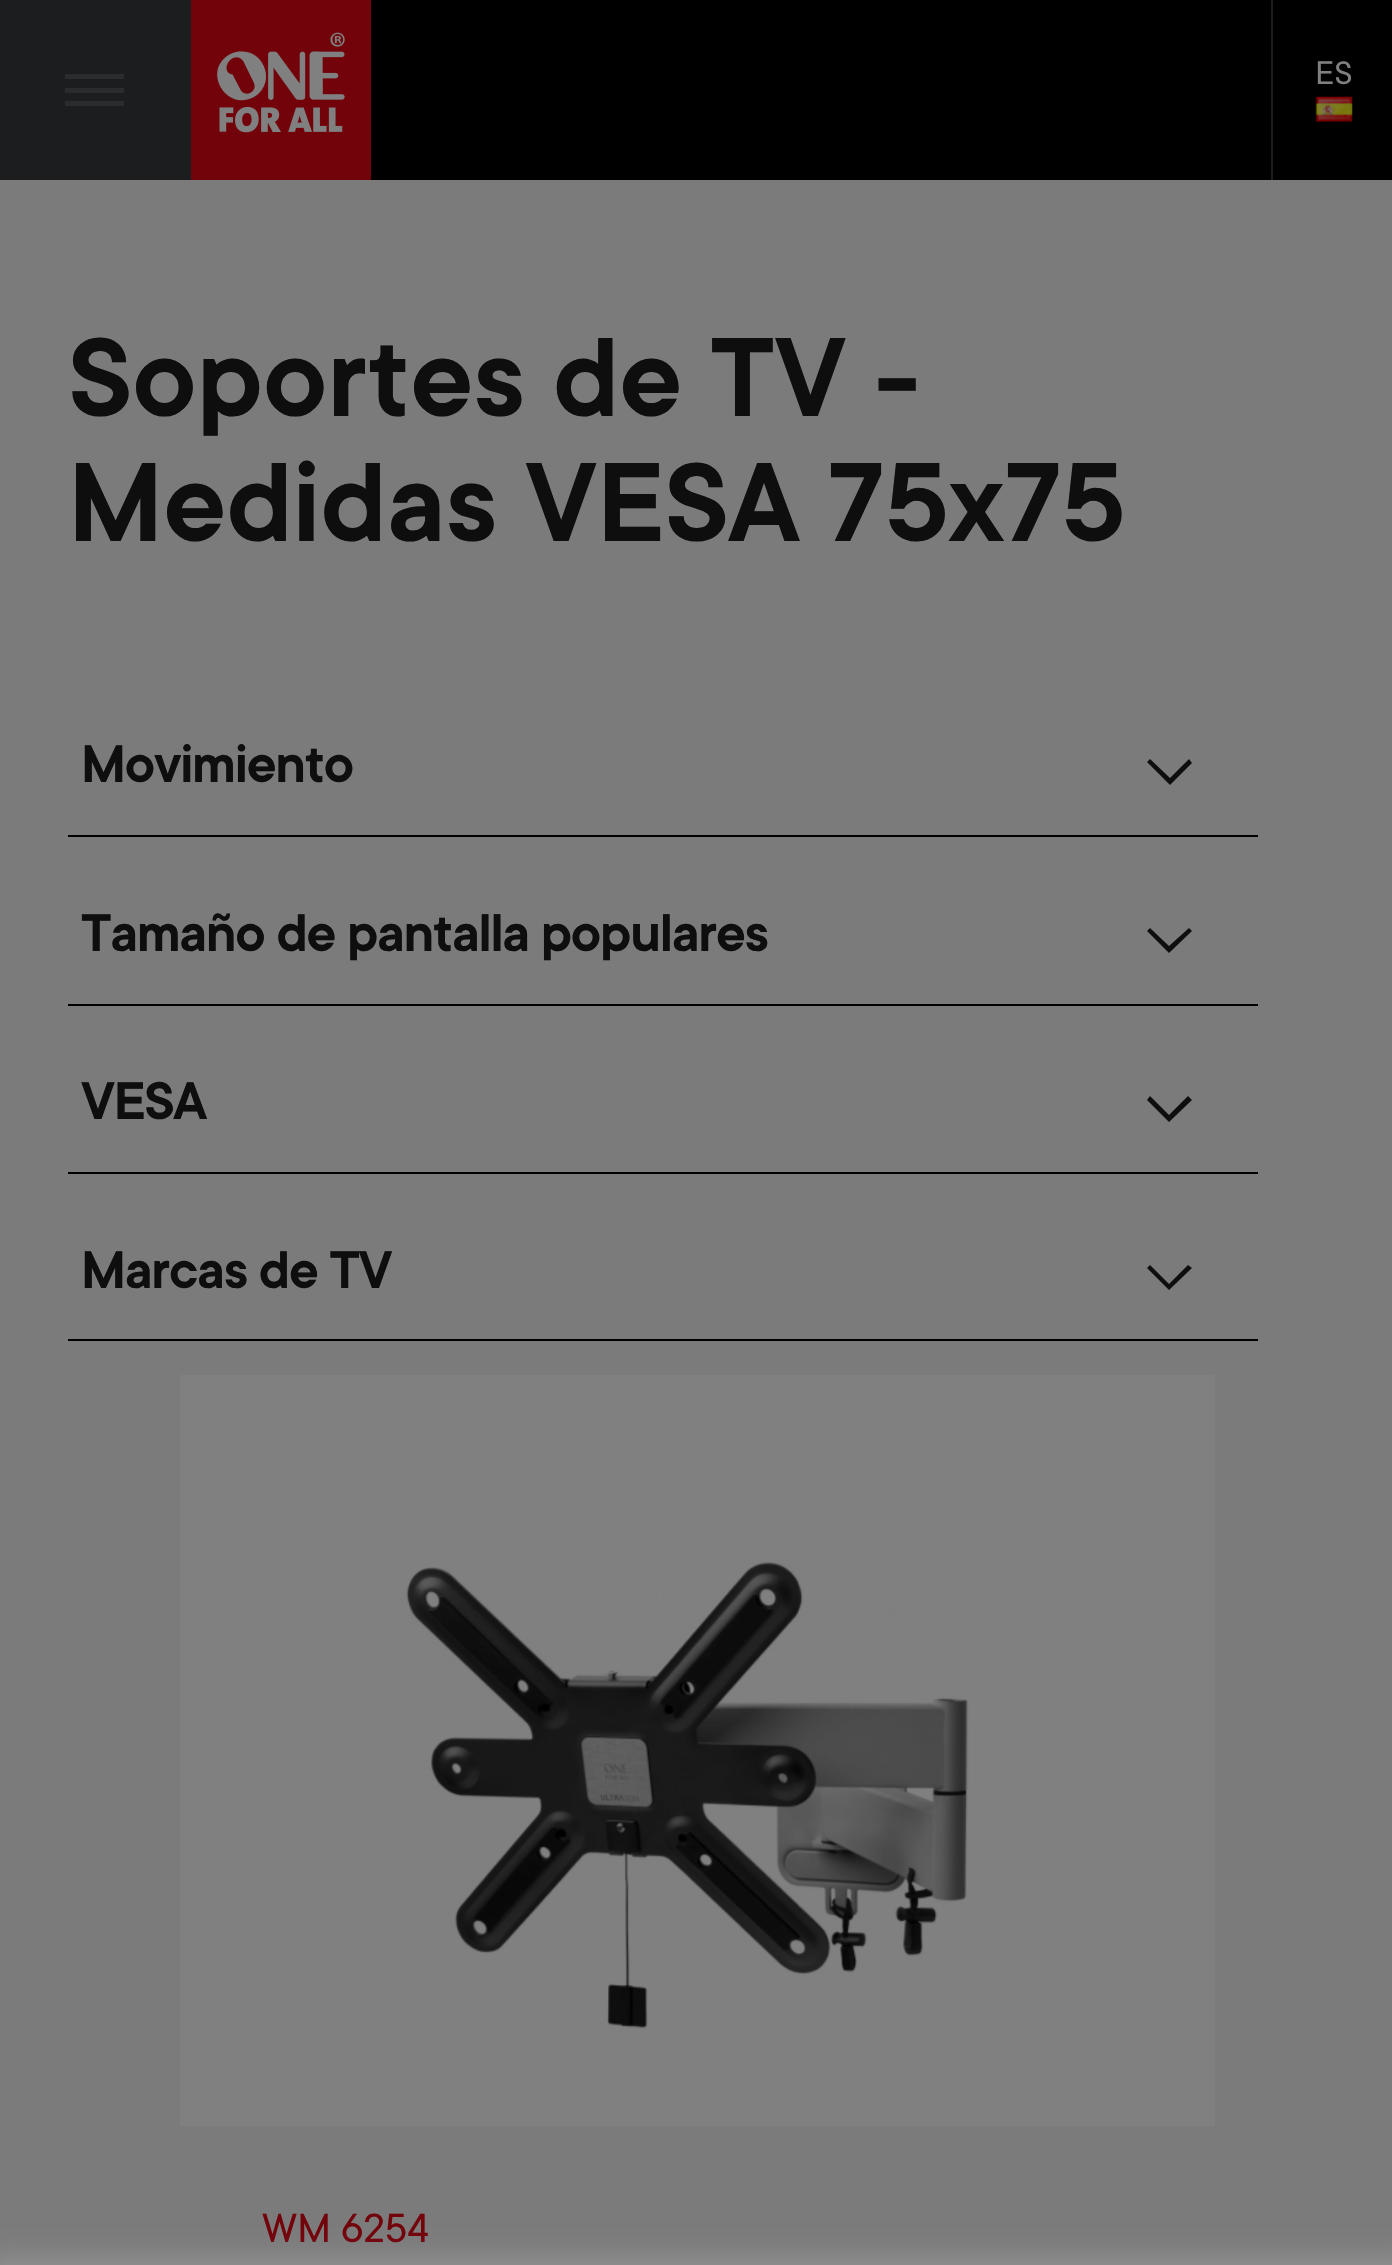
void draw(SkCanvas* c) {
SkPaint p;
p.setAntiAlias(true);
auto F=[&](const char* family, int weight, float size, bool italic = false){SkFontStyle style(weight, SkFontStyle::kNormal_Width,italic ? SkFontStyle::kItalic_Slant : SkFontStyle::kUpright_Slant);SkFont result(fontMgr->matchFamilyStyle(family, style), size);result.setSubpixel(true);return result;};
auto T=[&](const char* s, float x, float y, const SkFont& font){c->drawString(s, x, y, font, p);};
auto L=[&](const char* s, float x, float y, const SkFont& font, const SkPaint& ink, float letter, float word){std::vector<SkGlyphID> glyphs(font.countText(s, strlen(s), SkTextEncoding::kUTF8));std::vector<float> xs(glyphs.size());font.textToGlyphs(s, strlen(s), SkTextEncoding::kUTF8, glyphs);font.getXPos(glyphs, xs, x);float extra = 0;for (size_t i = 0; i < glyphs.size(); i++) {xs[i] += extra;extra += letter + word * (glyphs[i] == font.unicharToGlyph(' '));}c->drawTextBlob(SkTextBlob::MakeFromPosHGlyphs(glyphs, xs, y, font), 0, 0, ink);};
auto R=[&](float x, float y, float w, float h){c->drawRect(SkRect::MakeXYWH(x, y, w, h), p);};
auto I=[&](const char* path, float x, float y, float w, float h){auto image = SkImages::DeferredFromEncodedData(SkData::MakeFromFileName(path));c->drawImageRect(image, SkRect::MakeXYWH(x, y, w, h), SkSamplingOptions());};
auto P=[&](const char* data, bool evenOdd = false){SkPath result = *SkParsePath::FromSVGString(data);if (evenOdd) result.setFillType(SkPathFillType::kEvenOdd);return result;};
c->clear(0xff000000);
p.setColor(0xff7b7b7b);
R(0,180,1392,2085);
p.setColor(0xff1c1d1e);
R(0,0,191,180);
p.setColor(0xff2b2c2e);
R(65,74,59,5);
R(65,88,59,5);
R(65,101,59,5);
I("1.png",191,0,180,180);
p.setColor(0xff1c1d1e);
R(1271,0,2,180);
auto f1 = F("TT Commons",400,36);
p.setColor(0xff808080);
T("ES",1315,84,f1);
I("2.png",1315,96,38,27);
auto f2 = F("TT Commons",600,123.75);
p.setColor(0xff0e0e0e);
T("Soportes de TV -",68,416,f2);
T("Medidas VESA 75x75",68,541,f2);
p.setColor(0xff000000);
R(68,835,1190,2);
auto f3 = F("TT Commons",600,58.5);
p.setColor(0xff0e0e0e);
L("Movimiento",81,782,f3,p,-1.25,0);
c->drawPath(P("M1170 785l-23-23l3-3l20 19l19-19l3 4z"),p);
p.setColor(0xff000000);
R(68,1004,1190,2);
p.setColor(0xff0e0e0e);
L("Tamaño de pantalla populares",81,951,f3,p,-1.25,0);
c->drawPath(P("M1169 953l-22-22l3-3l19 18l20-18l3 3z"),p);
p.setColor(0xff000000);
R(68,1172,1190,2);
p.setColor(0xff0e0e0e);
L("VESA",81,1119,f3,p,-1.25,0);
c->drawPath(P("M1169 1122l-22-22l3-4l19 19l19-19l4 4z"),p);
p.setColor(0xff000000);
R(68,1339,1190,2);
p.setColor(0xff0e0e0e);
L("Marcas de TV",81,1288,f3,p,-1.25,0);
c->drawPath(P("M1169 1290l-22-22l3-3l19 19l19-19l4 3z"),p);
p.setColor(0xff808080);
R(180,1375,1035,751);
I("3.png",406,1562,563,467);
auto f4 = F("TT Commons",400,45);
p.setColor(0xff72030b);
T("WM 6254",262,2242,f4);
p.setColor(0x33dedede);
p.setMaskFilter(SkMaskFilter::MakeBlur(kNormal_SkBlurStyle, 11));
c->drawRect(SkRect::MakeXYWH(-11,2255,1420,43),p);
p.setMaskFilter(nullptr);
}
